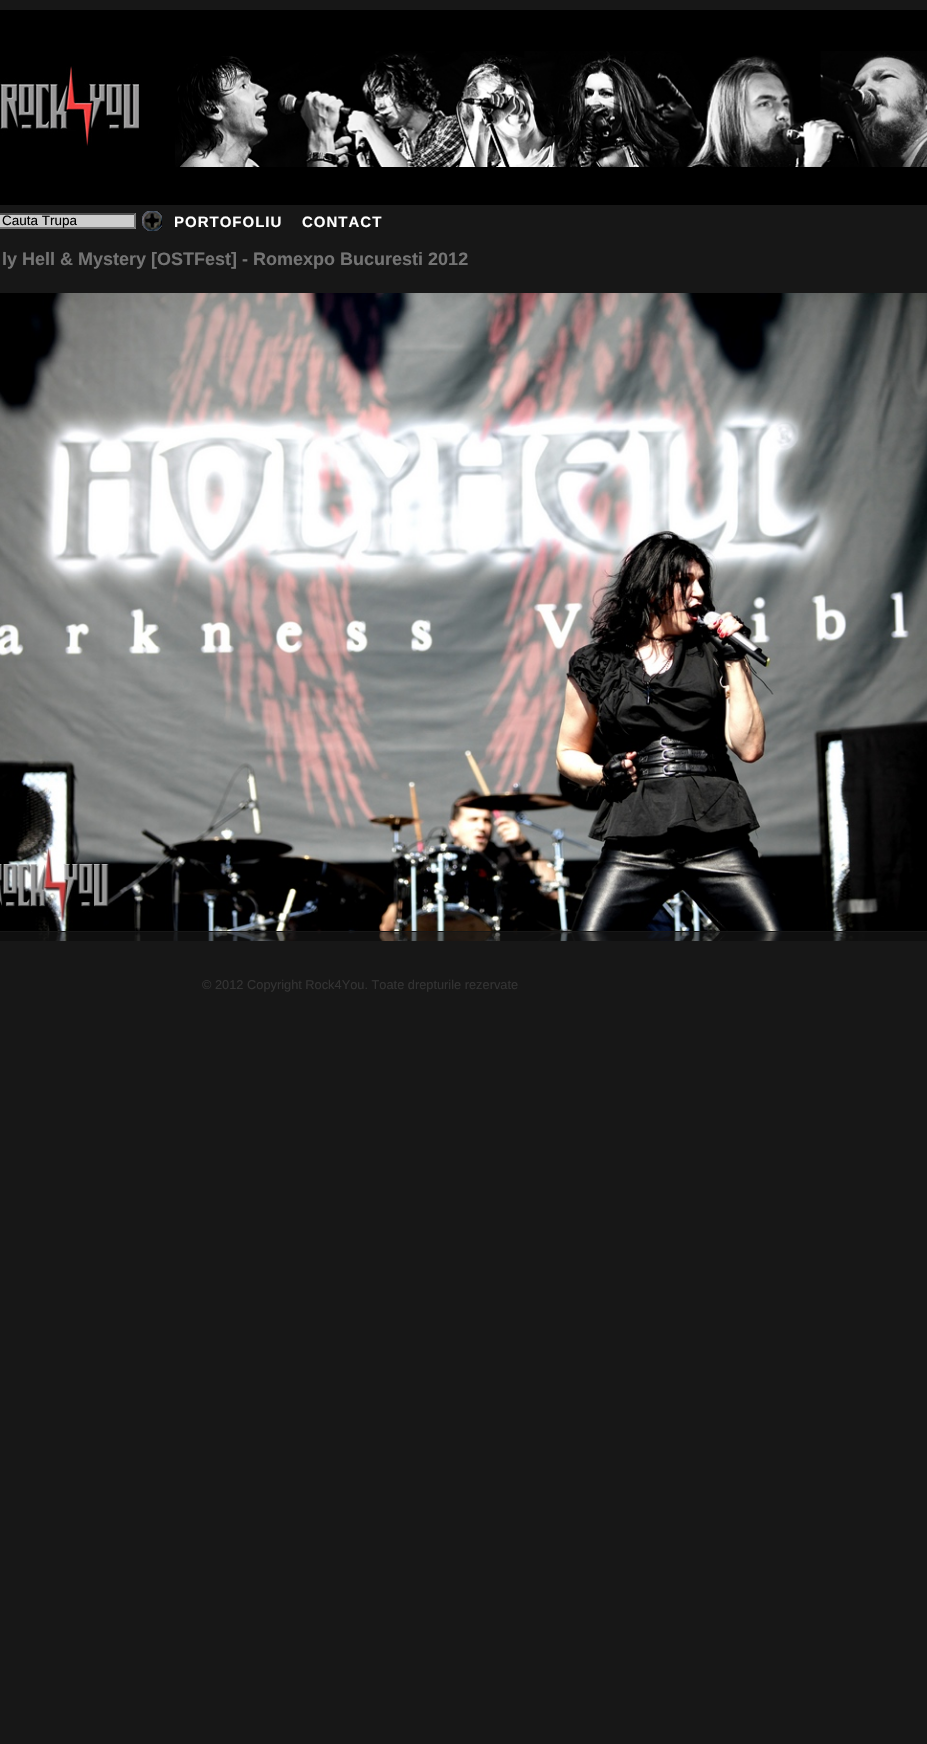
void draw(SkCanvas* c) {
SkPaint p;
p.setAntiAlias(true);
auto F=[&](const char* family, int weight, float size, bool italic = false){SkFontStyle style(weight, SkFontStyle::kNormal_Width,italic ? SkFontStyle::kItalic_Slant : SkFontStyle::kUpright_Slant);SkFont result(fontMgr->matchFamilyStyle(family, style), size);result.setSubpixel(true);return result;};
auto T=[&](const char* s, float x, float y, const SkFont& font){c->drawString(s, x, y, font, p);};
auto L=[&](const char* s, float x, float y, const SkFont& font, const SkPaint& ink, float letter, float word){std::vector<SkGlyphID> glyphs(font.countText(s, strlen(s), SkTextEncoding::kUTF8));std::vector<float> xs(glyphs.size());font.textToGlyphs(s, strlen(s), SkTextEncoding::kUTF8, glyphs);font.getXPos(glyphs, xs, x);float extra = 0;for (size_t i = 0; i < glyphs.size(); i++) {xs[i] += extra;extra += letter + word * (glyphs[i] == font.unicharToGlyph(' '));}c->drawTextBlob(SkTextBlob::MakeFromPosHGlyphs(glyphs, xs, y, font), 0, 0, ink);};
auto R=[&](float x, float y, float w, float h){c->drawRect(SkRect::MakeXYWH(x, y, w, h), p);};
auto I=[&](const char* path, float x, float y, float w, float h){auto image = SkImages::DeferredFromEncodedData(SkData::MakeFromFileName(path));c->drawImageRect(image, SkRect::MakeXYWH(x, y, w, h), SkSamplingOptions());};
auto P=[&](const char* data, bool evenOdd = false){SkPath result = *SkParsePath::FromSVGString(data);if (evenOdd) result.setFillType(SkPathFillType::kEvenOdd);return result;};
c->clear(0xff171717);
p.setColor(0xff000000);
R(0,10,927,195);
I("1.png",0,66,139,80);
I("2.png",175,51,752,116);
p.setColor(0xffcccccc);
R(0,213,136,16);
p.setColor(0xff4f4f4f);
c->drawPath(P("M-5 213h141l-2 2h-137z"),p);
p.setColor(0xff767676);
c->drawPath(P("M136 213v16l-2-2v-12z"),p);
c->drawPath(P("M136 229h-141l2-2h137z"),p);
auto f1 = F("Liberation Sans",400,13.5);
p.setColor(0xff000000);
T("Cauta Trupa",2,225,f1);
I("3.png",142,211,20,20);
auto f2 = F("Liberation Sans",700,15);
p.setColor(0xffffffff);
L("PORTOFOLIU",174,227,f2,p,1,0);
L("CONTACT",302,227,f2,p,1,0);
auto f3 = F("Liberation Sans",700,18);
p.setColor(0xff747474);
T("ly Hell & Mystery [OSTFest] - Romexpo Bucuresti 2012",2,265,f3);
I("4.png",0,293,927,638);
I("5.png",0,932,927,9);
auto f4 = F("Liberation Sans",400,12.8);
p.setColor(0xff333333);
T("© 2012 Copyright Rock4You. Toate drepturile rezervate",202,989,f4);
}
